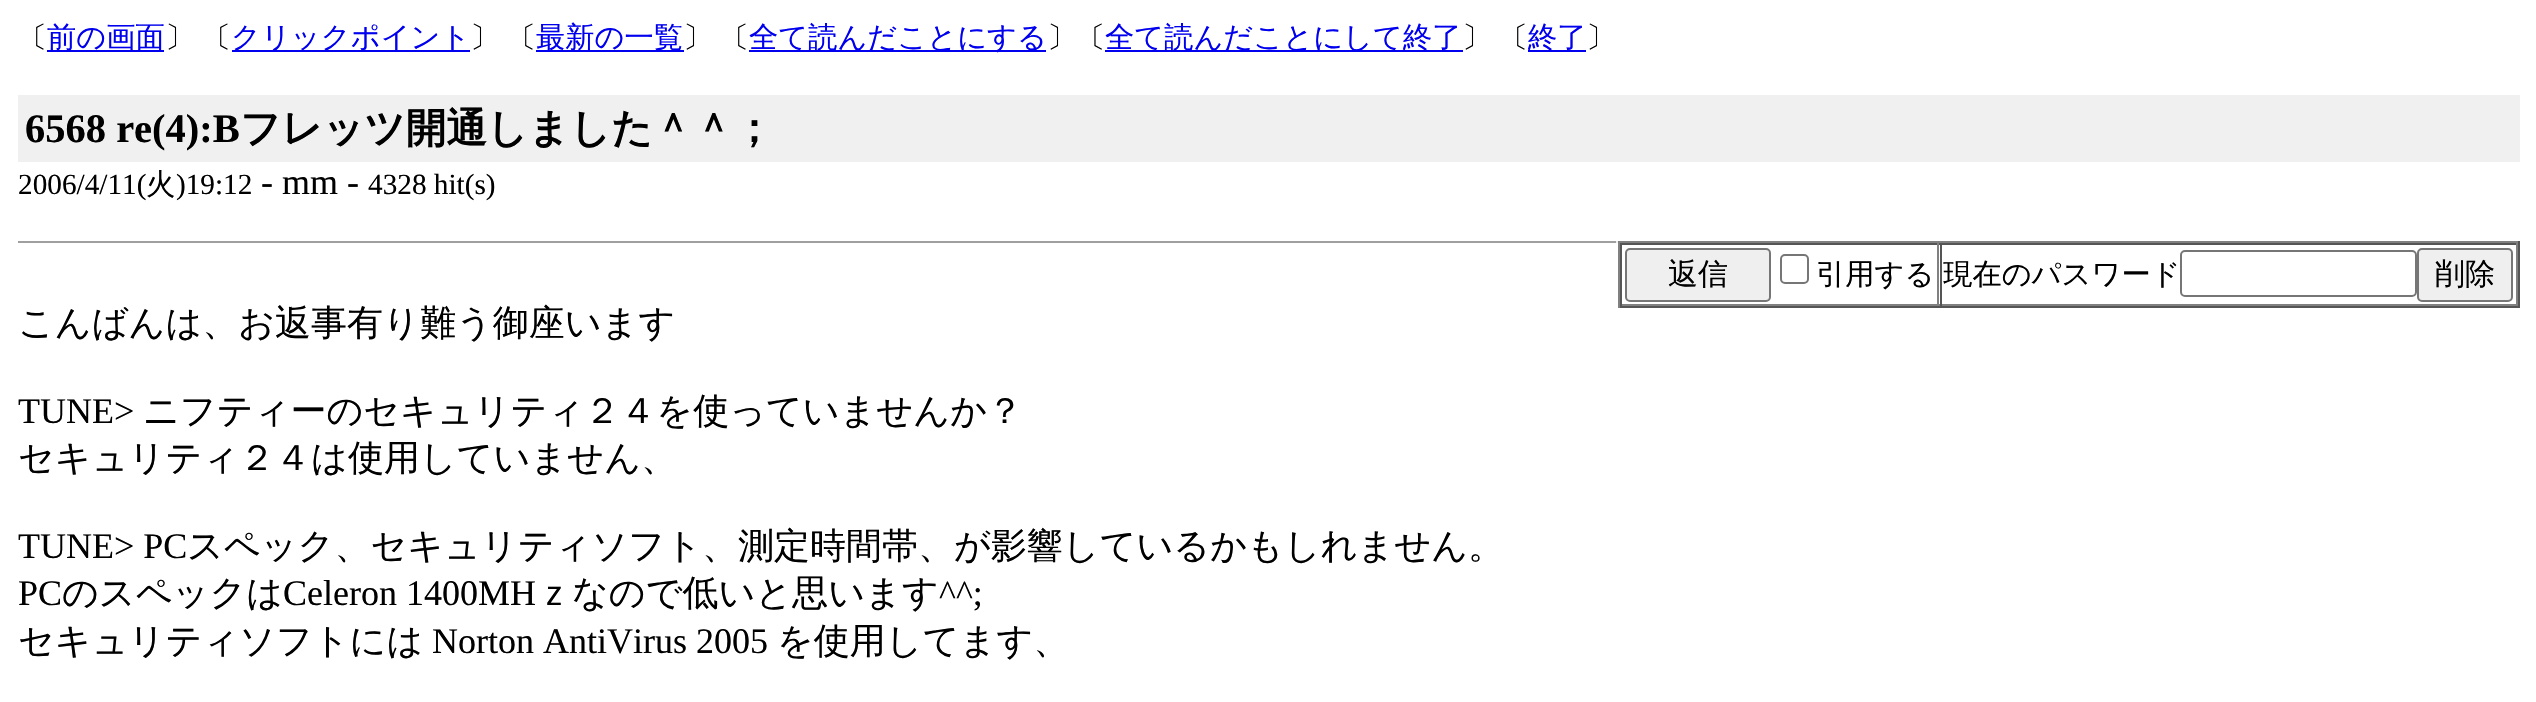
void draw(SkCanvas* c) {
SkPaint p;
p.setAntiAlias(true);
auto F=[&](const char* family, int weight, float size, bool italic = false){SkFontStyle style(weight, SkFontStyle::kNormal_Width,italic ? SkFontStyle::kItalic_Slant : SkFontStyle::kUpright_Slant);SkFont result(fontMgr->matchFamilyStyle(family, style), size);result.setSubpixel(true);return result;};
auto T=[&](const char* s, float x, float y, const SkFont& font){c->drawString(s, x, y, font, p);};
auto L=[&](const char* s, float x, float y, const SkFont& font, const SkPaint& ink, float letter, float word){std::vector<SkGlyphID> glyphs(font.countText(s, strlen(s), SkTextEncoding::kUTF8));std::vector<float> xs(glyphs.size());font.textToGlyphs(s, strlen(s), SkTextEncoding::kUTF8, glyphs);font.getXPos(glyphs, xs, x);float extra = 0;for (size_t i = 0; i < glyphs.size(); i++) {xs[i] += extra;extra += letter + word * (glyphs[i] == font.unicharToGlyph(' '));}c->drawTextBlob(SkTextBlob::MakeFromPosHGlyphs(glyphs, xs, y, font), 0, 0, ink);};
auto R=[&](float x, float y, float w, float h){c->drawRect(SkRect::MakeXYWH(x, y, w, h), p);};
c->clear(0xffffffff);
auto f1 = F("WenQuanYi Zen Hei",500,29.25);
p.setColor(0xff000000);
T("〔",18,47,f1);
p.setColor(0xff0000ee);
R(47,50,117,2);
T("前の画面",47,47,f1);
p.setColor(0xff000000);
L("〕 〔",165,47,f1,p,0,-1);
p.setColor(0xff0000ee);
R(232,50,238,2);
T("クリックポイント",231,47,f1);
p.setColor(0xff000000);
L("〕 〔",470,47,f1,p,0,-1);
p.setColor(0xff0000ee);
R(536,50,148,2);
T("最新の一覧",536,47,f1);
p.setColor(0xff000000);
L("〕 〔",683,47,f1,p,0,-1);
p.setColor(0xff0000ee);
R(749,50,297,2);
T("全て読んだことにする",749,47,f1);
p.setColor(0xff000000);
T("〕〔",1047,47,f1);
p.setColor(0xff0000ee);
R(1105,50,358,2);
T("全て読んだことにして終了",1105,47,f1);
p.setColor(0xff000000);
L("〕 〔",1462,47,f1,p,0,-1);
p.setColor(0xff0000ee);
R(1528,50,58,2);
T("終了",1528,47,f1);
p.setColor(0xff000000);
T("〕",1586,47,f1);
p.setColor(0xfff0f0f0);
R(18,95,2502,67);
auto f2 = F("Liberation Serif",700,40.5);
p.setColor(0xff000000);
T("6568 re(4):B",25,142,f2);
auto f3 = F("WenQuanYi Zen Hei",700,40.5);
T("フレッツ開通しました＾＾；",240,142,f3);
auto f4 = F("Liberation Serif",400,29.25);
T("2006/4/11(",18,194,f4);
T("火",146,194,f1);
T(")19:12",176,194,f4);
auto f5 = F("Liberation Serif",400,36);
T("- mm -",261,194,f5);
T("4328 hit(s)",368,194,f4);
p.setColor(0xff9f9f9f);
R(18,241,1600,2);
p.setColor(0xffeeeeee);
R(1616,241,2,2);
p.setColor(0xff808080);
R(1618,241,902,2);
p.setColor(0xff555555);
R(2518,241,2,67);
R(1618,306,902,2);
p.setColor(0xff808080);
R(1618,241,2,67);
p.setColor(0xff555555);
R(1620,243,898,2);
p.setColor(0xff808080);
R(1937,243,2,63);
R(1620,304,320,2);
p.setColor(0xff555555);
R(1620,243,2,63);
p.setColor(0xffefefef);
c->drawRoundRect(SkRect::MakeXYWH(1626,249,144,52),4,4,p);
p.setStroke(true);
p.setStrokeWidth(2);
p.setColor(0xff767676);
c->drawRoundRect(SkRect::MakeXYWH(1626,249,144,52),4,4,p);
auto f6 = F("WenQuanYi Zen Hei",500,30);
p.setStroke(false);
p.setColor(0xff000000);
T("返信",1668,284,f6);
p.setStroke(true);
p.setColor(0xff767676);
c->drawRoundRect(SkRect::MakeXYWH(1781,255,27,28),4,4,p);
p.setStroke(false);
p.setColor(0xff808080);
R(2516,243,2,63);
R(1940,304,578,2);
p.setColor(0xff555555);
R(1940,243,2,63);
p.setColor(0xff000000);
T("引用する 現在のパスワード",1816,284,f1);
p.setStroke(true);
p.setColor(0xff767676);
c->drawRoundRect(SkRect::MakeXYWH(2181,251,235,45),4,4,p);
p.setStroke(false);
p.setColor(0xffefefef);
c->drawRoundRect(SkRect::MakeXYWH(2418,249,94,52),4,4,p);
p.setStroke(true);
p.setColor(0xff767676);
c->drawRoundRect(SkRect::MakeXYWH(2418,249,94,52),4,4,p);
p.setStroke(false);
p.setColor(0xff000000);
T("削除",2435,284,f6);
auto f7 = F("WenQuanYi Zen Hei",500,36);
T("こんばんは、お返事有り難う御座います",18,335,f7);
T("TUNE>",18,423,f5);
T("ニフティーのセキュリティ２４を使っていませんか？",143,423,f7);
T("セキュリティ２４は使用していません、",18,470,f7);
T("TUNE> PC",18,558,f5);
T("スペック、セキュリティソフト、測定時間帯、が影響しているかもしれません。",187,558,f7);
T("PC",18,605,f5);
T("のスペックは",62,605,f7);
T("Celeron 1400MH",283,605,f5);
T("ｚなので低いと思います",536,605,f7);
T("^^;",939,605,f5);
T("セキュリティソフトには",18,653,f7);
T("Norton AntiVirus 2005",432,653,f5);
T("を使用してます、",777,653,f7);
}
